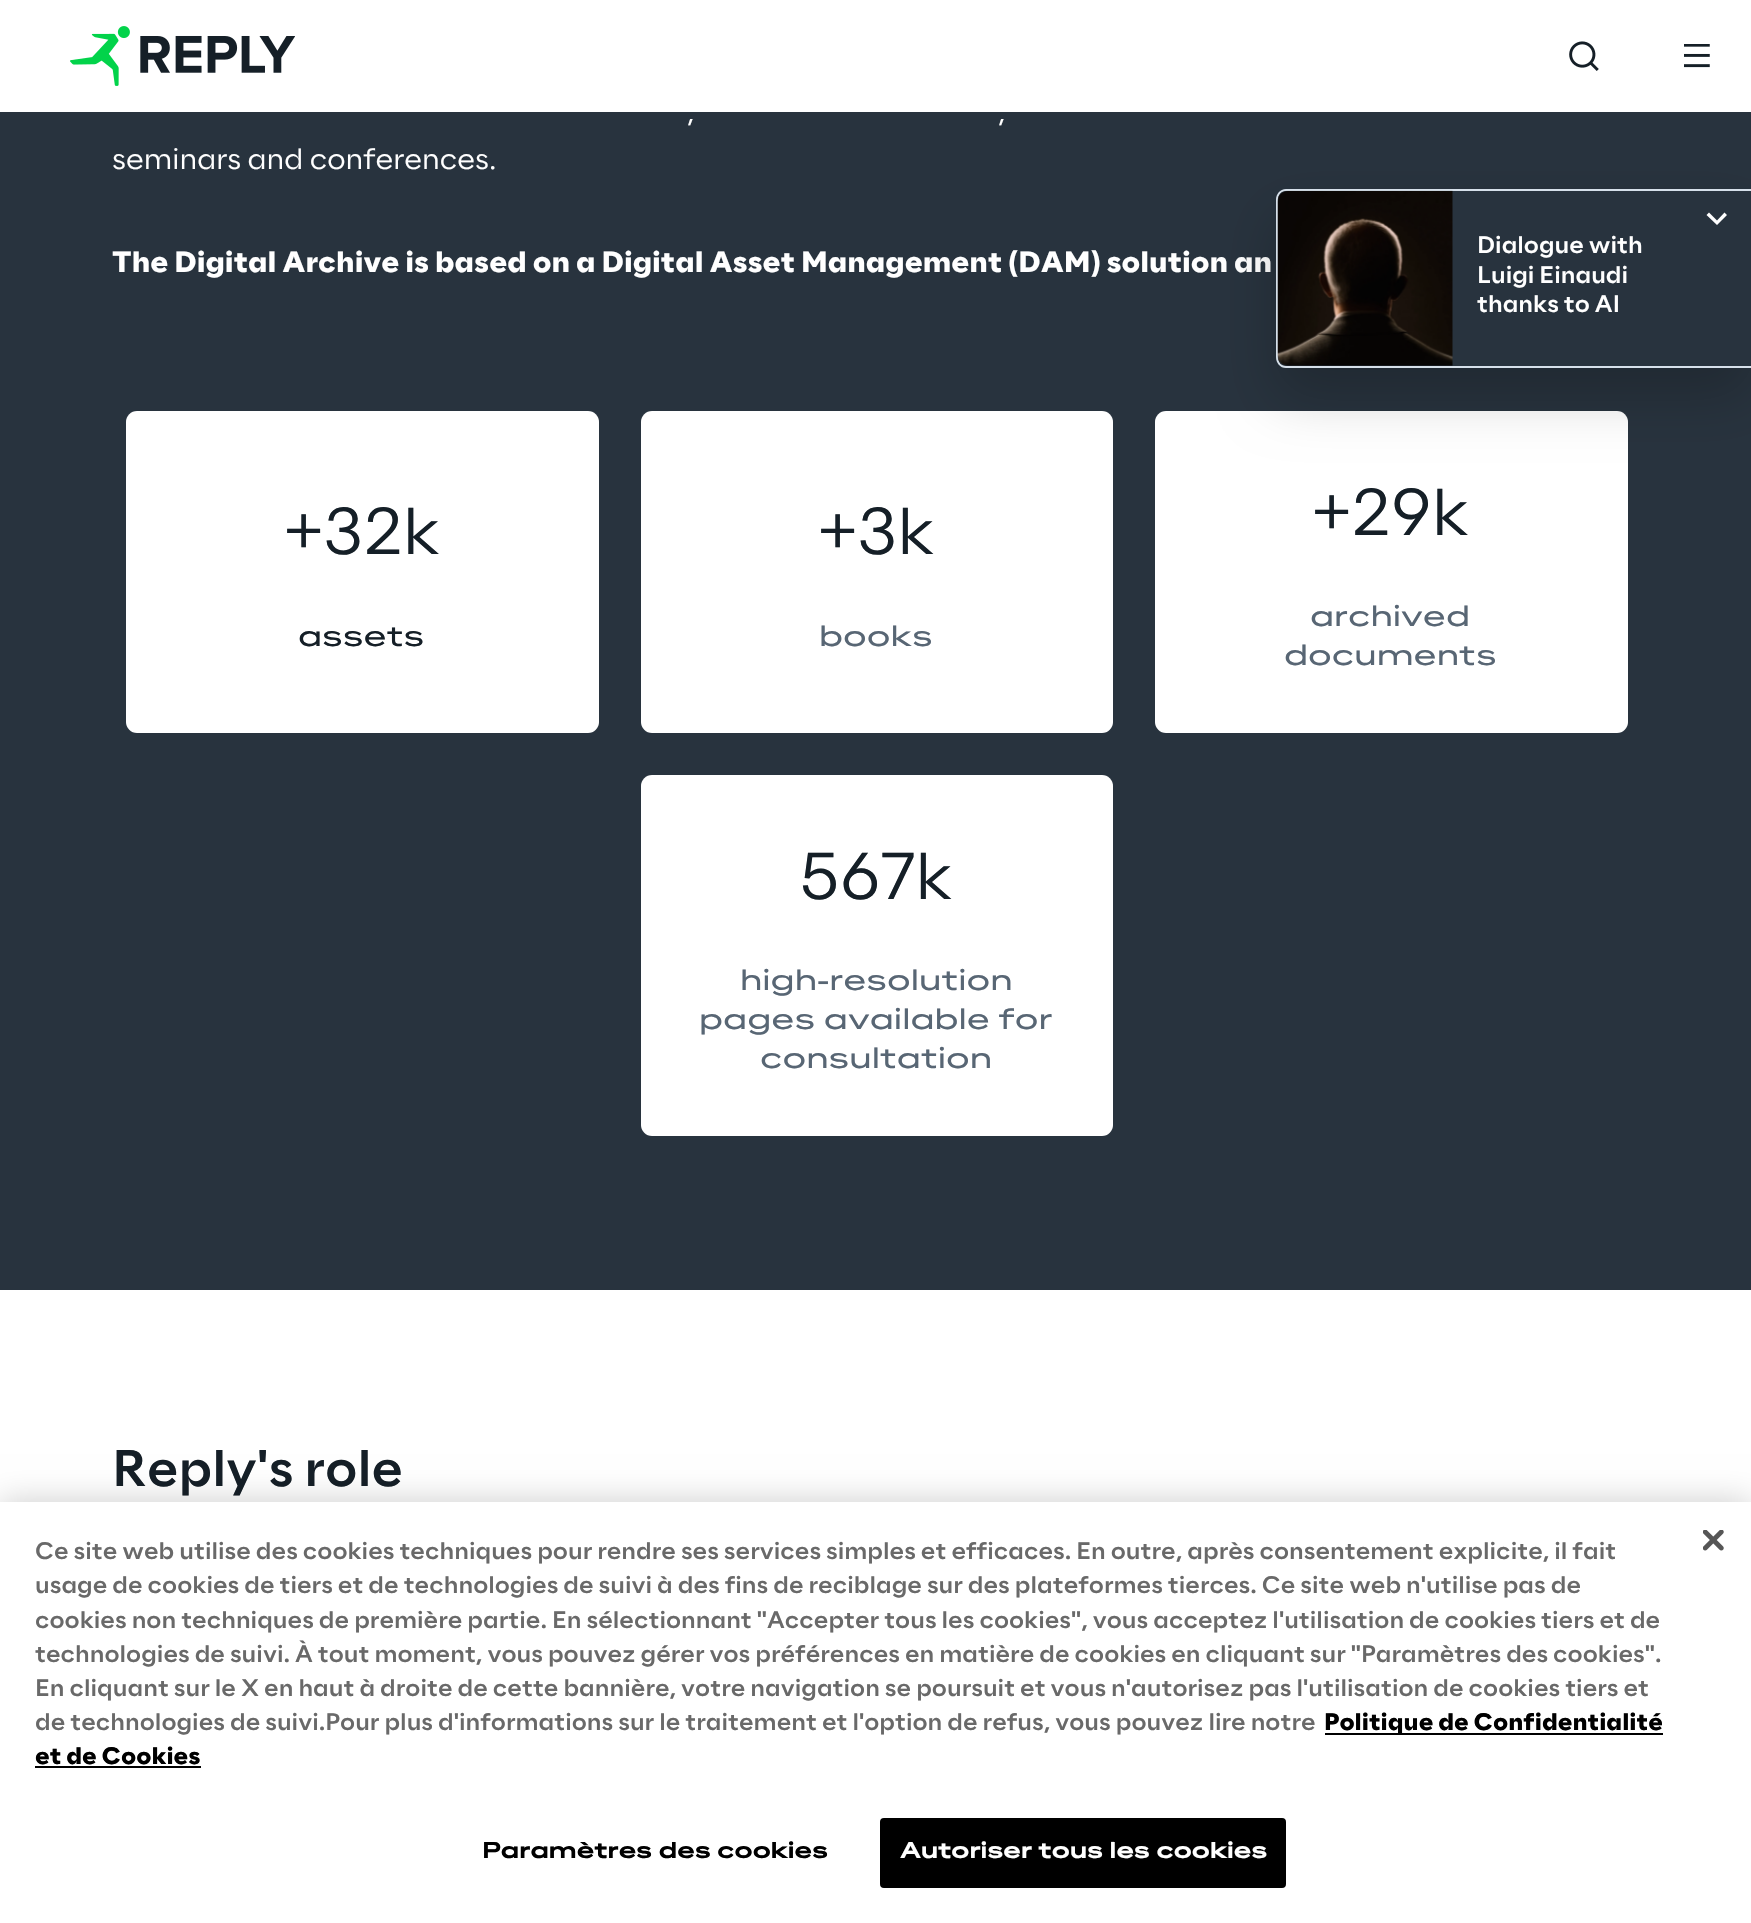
void draw(SkCanvas* c) {
SkPaint p;
p.setAntiAlias(true);
auto F=[&](const char* family, int weight, float size, bool italic = false){SkFontStyle style(weight, SkFontStyle::kNormal_Width,italic ? SkFontStyle::kItalic_Slant : SkFontStyle::kUpright_Slant);SkFont result(fontMgr->matchFamilyStyle(family, style), size);result.setSubpixel(true);return result;};
auto T=[&](const char* s, float x, float y, const SkFont& font){c->drawString(s, x, y, font, p);};
auto L=[&](const char* s, float x, float y, const SkFont& font, const SkPaint& ink, float letter, float word){std::vector<SkGlyphID> glyphs(font.countText(s, strlen(s), SkTextEncoding::kUTF8));std::vector<float> xs(glyphs.size());font.textToGlyphs(s, strlen(s), SkTextEncoding::kUTF8, glyphs);font.getXPos(glyphs, xs, x);float extra = 0;for (size_t i = 0; i < glyphs.size(); i++) {xs[i] += extra;extra += letter + word * (glyphs[i] == font.unicharToGlyph(' '));}c->drawTextBlob(SkTextBlob::MakeFromPosHGlyphs(glyphs, xs, y, font), 0, 0, ink);};
auto R=[&](float x, float y, float w, float h){c->drawRect(SkRect::MakeXYWH(x, y, w, h), p);};
auto Q=[&](float x, float y, float w, float h, float radius){c->drawRoundRect(SkRect::MakeXYWH(x, y, w, h), radius, radius, p);};
auto I=[&](const char* path, float x, float y, float w, float h){auto image = SkImages::DeferredFromEncodedData(SkData::MakeFromFileName(path));c->drawImageRect(image, SkRect::MakeXYWH(x, y, w, h), SkSamplingOptions());};
auto P=[&](const char* data, bool evenOdd = false){SkPath result = *SkParsePath::FromSVGString(data);if (evenOdd) result.setFillType(SkPathFillType::kEvenOdd);return result;};
c->clear(0xffffffff);
I("1.png",70,26,225,60);
I("2.png",1569,41,30,30);
I("3.png",1684,44,26,24);
p.setColor(0xff28333e);
R(0,112,1751,1178);
auto f1 = F("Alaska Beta",300,28);
p.setColor(0xffffffff);
T(",",687,122,f1);
T(",",998,122,f1);
T("seminars and conferences.",112,169,f1);
auto f2 = F("Alaska Beta",700,28);
T("The Digital Archive is based on a Digital Asset Management (DAM) solution an",112,272,f2);
Q(1155,411,473,322,11);
p.setColor(0x33000000);
p.setMaskFilter(SkMaskFilter::MakeBlur(kNormal_SkBlurStyle, 28));
c->drawRoundRect(SkRect::MakeXYWH(1276,217,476,179),11,11,p);
p.setMaskFilter(nullptr);
p.setColor(0xff28333e);
c->drawPath(P("M1287 191h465v175h-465c-5 0-9-4-9-9v-157c0-5 4-9 9-9z"),p);
p.setColor(0xffd6e0ea);
c->drawPath(P("M1286 189h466v179h-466c-6 0-10-5-10-11v-157c0-6 4-11 10-11zm0 2h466v175h-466c-5 0-8-4-8-9v-157c0-5 3-9 8-9z",true),p);
I("4.png",1277,190,176,176);
p.setColor(0xffffffff);
c->drawPath(P("M1717 220.5l7.5-8l2.5 2.5l-10 10l-10.5-10l2.5-2.5z"),p);
auto f3 = F("Alaska Beta",500,22.75);
T("Dialogue with",1477,253,f3);
T("Luigi Einaudi",1477,283,f3);
T("thanks to AI",1477,312,f3);
Q(126,411,473,322,11);
auto f4 = F("Alaska Beta",300,63);
p.setColor(0xff151f27);
T("+32k",284,554,f4);
auto f5 = F("Alaska Beta",400,28);
T("assets",298,646,f5);
p.setColor(0xffffffff);
Q(641,411,472,322,11);
p.setColor(0xff151f27);
T("+3k",818,554,f4);
p.setColor(0xff586674);
T("books",819,646,f5);
p.setColor(0xff151f27);
T("+29k",1312,535,f4);
p.setColor(0xff586674);
T("archived",1310,626,f5);
T("documents",1284,665,f5);
p.setColor(0xffffffff);
Q(641,775,472,361,11);
p.setColor(0xff151f27);
T("567k",799,899,f4);
p.setColor(0xff586674);
T("high-resolution",740,990,f5);
T("pages available for",699,1029,f5);
T("consultation",760,1068,f5);
auto f6 = F("Alaska Beta",500,49);
p.setColor(0xff151f27);
T("Reply's role",112,1486,f6);
p.setColor(0x33000000);
p.setMaskFilter(SkMaskFilter::MakeBlur(kNormal_SkBlurStyle, 16));
c->drawRect(SkRect::MakeXYWH(0,1502,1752,421),p);
p.setMaskFilter(nullptr);
p.setColor(0xffffffff);
R(0,1502,1751,421);
p.setColor(0xff696969);
T("Ce site web utilise des cookies techniques pour rendre ses services simples et efficaces. En outre, après consentement explicite, il fait",35,1559,f3);
T("usage de cookies de tiers et de technologies de suivi à des fins de reciblage sur des plateformes tierces. Ce site web n'utilise pas de",35,1593,f3);
T("cookies non techniques de première partie.",35,1628,f3);
T("En sélectionnant \"Accepter tous les cookies\", vous acceptez l'utilisation de cookies tiers et de",552,1628,f3);
T("technologies de suivi. À tout moment, vous pouvez gérer vos préférences en matière de cookies en cliquant sur \"Paramètres des cookies\".",35,1662,f3);
T("En cliquant sur le X en haut à droite de cette bannière, votre navigation se poursuit et vous n'autorisez pas l'utilisation de cookies tiers et",35,1696,f3);
T("de technologies de suivi.Pour plus d'informations sur le traitement et l'option de refus, vous pouvez lire notre",35,1730,f3);
p.setColor(0xff000000);
R(1325,1733,338,2);
auto f7 = F("Alaska Beta",700,22.75);
T("Politique de Confidentialité",1324,1730,f7);
T("et de Cookies",35,1764,f7);
R(35,1766,166,2);
auto f8 = F("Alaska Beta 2",700,21);
L("Paramètres des cookies",482,1858,f8,p,.2,0);
c->drawRoundRect(SkRect::MakeXYWH(881,1819,404,68),3,3,p);
p.setStroke(true);
p.setStrokeWidth(2);
c->drawRoundRect(SkRect::MakeXYWH(881,1819,404,68),3,3,p);
p.setStroke(false);
p.setColor(0xffffffff);
L("Autoriser tous les cookies",900,1858,f8,p,.2,0);
I("5.png",1703,1530,21,21);
}
